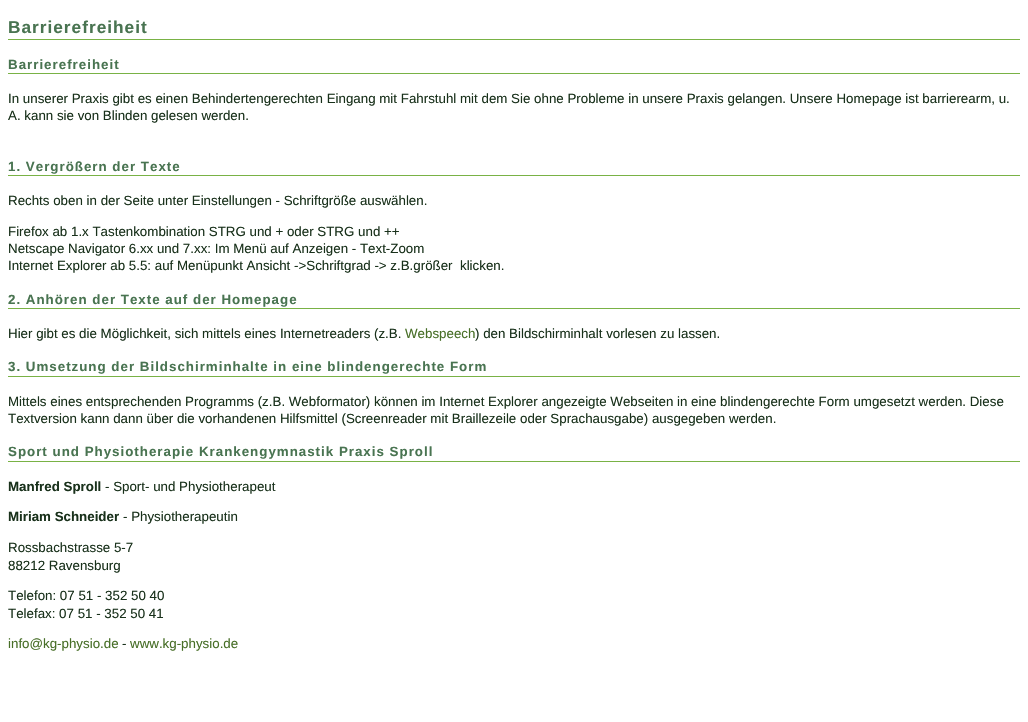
void draw(SkCanvas* c) {
SkPaint p;
p.setAntiAlias(true);
auto F=[&](const char* family, int weight, float size, bool italic = false){SkFontStyle style(weight, SkFontStyle::kNormal_Width,italic ? SkFontStyle::kItalic_Slant : SkFontStyle::kUpright_Slant);SkFont result(fontMgr->matchFamilyStyle(family, style), size);result.setSubpixel(true);return result;};
auto T=[&](const char* s, float x, float y, const SkFont& font){c->drawString(s, x, y, font, p);};
auto L=[&](const char* s, float x, float y, const SkFont& font, const SkPaint& ink, float letter, float word){std::vector<SkGlyphID> glyphs(font.countText(s, strlen(s), SkTextEncoding::kUTF8));std::vector<float> xs(glyphs.size());font.textToGlyphs(s, strlen(s), SkTextEncoding::kUTF8, glyphs);font.getXPos(glyphs, xs, x);float extra = 0;for (size_t i = 0; i < glyphs.size(); i++) {xs[i] += extra;extra += letter + word * (glyphs[i] == font.unicharToGlyph(' '));}c->drawTextBlob(SkTextBlob::MakeFromPosHGlyphs(glyphs, xs, y, font), 0, 0, ink);};
auto R=[&](float x, float y, float w, float h){c->drawRect(SkRect::MakeXYWH(x, y, w, h), p);};
c->clear(0xffffffff);
p.setColor(0xff79b245);
R(8,39,1012,1);
auto f1 = F("Liberation Sans",700,17.25);
p.setColor(0xff497451);
L("Barrierefreiheit",8,33,f1,p,1,0);
p.setColor(0xff79b245);
R(8,73,1012,1);
auto f2 = F("Liberation Sans",700,13.33);
p.setColor(0xff497451);
L("Barrierefreiheit",8,69,f2,p,1,0);
auto f3 = F("Liberation Sans",400,13.33);
p.setColor(0xff19311b);
T("In unserer Praxis gibt es einen Behindertengerechten Eingang mit Fahrstuhl mit dem Sie ohne Probleme in unsere Praxis gelangen. Unsere Homepage ist barrierearm, u.",8,103,f3);
T("A. kann sie von Blinden gelesen werden.",8,120,f3);
p.setColor(0xff79b245);
R(8,175,1012,1);
p.setColor(0xff497451);
L("1. Vergrößern der Texte",8,171,f2,p,1,0);
p.setColor(0xff19311b);
T("Rechts oben in der Seite unter Einstellungen - Schriftgröße auswählen.",8,205,f3);
T("Firefox ab 1.x Tastenkombination STRG und + oder STRG und ++",8,236,f3);
T("Netscape Navigator 6.xx und 7.xx: Im Menü auf Anzeigen - Text-Zoom",8,253,f3);
T("Internet Explorer ab 5.5: auf Menüpunkt Ansicht ->Schriftgrad -> z.B.größer  klicken.",8,270,f3);
p.setColor(0xff79b245);
R(8,308,1012,1);
p.setColor(0xff497451);
L("2. Anhören der Texte auf der Homepage",8,304,f2,p,1,0);
p.setColor(0xff19311b);
T("Hier gibt es die Möglichkeit, sich mittels eines Internetreaders (z.B.",8,338,f3);
p.setColor(0xff486f28);
T("Webspeech",405,338,f3);
p.setColor(0xff19311b);
T(") den Bildschirminhalt vorlesen zu lassen.",475,338,f3);
p.setColor(0xff79b245);
R(8,376,1012,1);
p.setColor(0xff497451);
L("3. Umsetzung der Bildschirminhalte in eine blindengerechte Form",8,371,f2,p,1,0);
p.setColor(0xff19311b);
T("Mittels eines entsprechenden Programms (z.B. Webformator) können im Internet Explorer angezeigte Webseiten in eine blindengerechte Form umgesetzt werden. Diese",8,406,f3);
T("Textversion kann dann über die vorhandenen Hilfsmittel (Screenreader mit Braillezeile oder Sprachausgabe) ausgegeben werden.",8,423,f3);
p.setColor(0xff79b245);
R(8,461,1012,1);
p.setColor(0xff497451);
L("Sport und Physiotherapie Krankengymnastik Praxis Sproll",8,456,f2,p,1,0);
p.setColor(0xff19311b);
T("Manfred Sproll",8,491,f2);
T("- Sport- und Physiotherapeut",105,491,f3);
T("Miriam Schneider",8,521,f2);
T("- Physiotherapeutin",123,521,f3);
T("Rossbachstrasse 5-7",8,552,f3);
T("88212 Ravensburg",8,570,f3);
T("Telefon: 07 51 - 352 50 40",8,600,f3);
T("Telefax: 07 51 - 352 50 41",8,618,f3);
p.setColor(0xff486f28);
T("info@kg-physio.de",8,648,f3);
p.setColor(0xff19311b);
T("-",122,648,f3);
p.setColor(0xff486f28);
T("www.kg-physio.de",130,648,f3);
}
